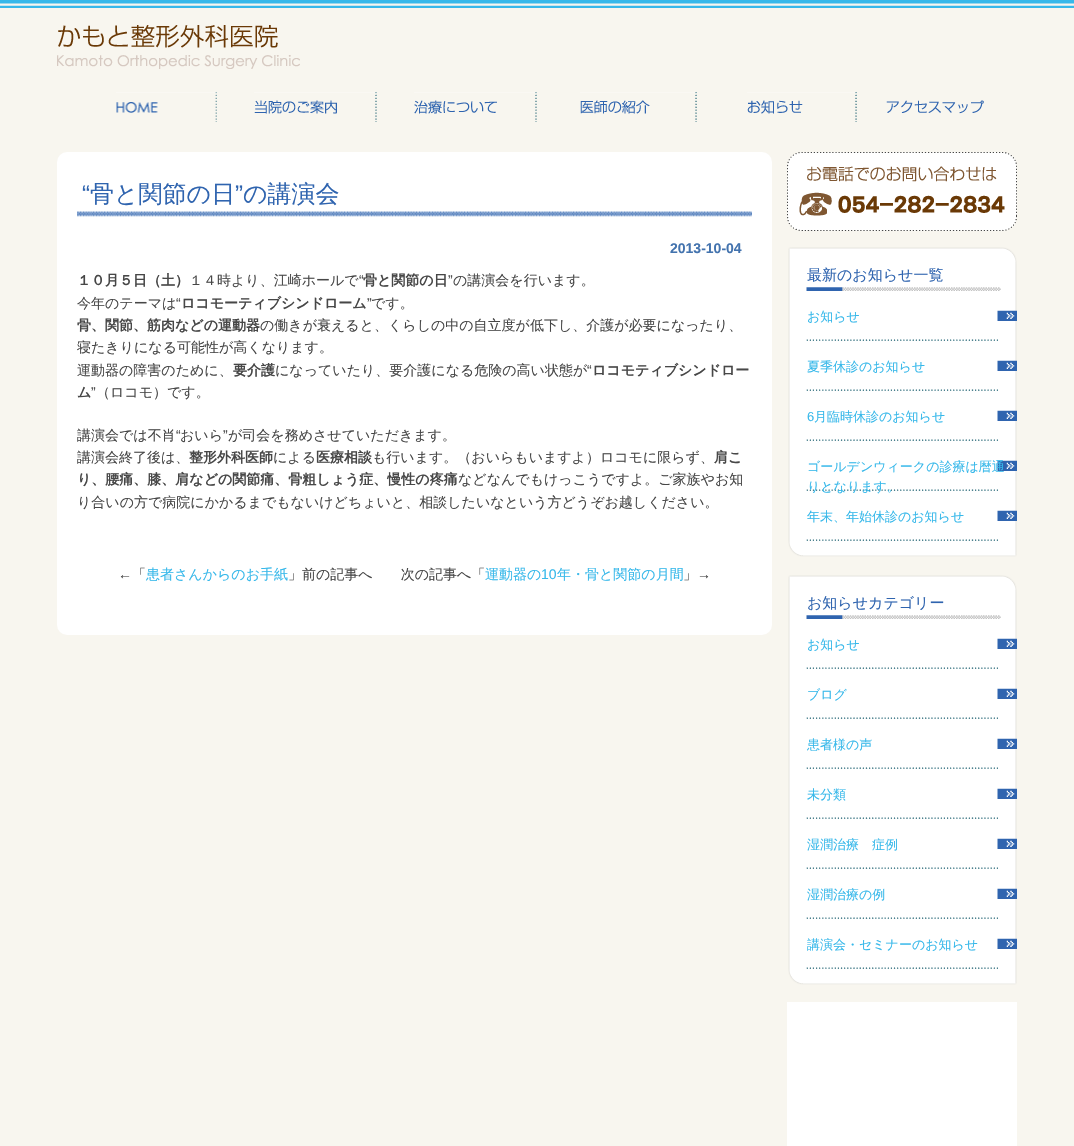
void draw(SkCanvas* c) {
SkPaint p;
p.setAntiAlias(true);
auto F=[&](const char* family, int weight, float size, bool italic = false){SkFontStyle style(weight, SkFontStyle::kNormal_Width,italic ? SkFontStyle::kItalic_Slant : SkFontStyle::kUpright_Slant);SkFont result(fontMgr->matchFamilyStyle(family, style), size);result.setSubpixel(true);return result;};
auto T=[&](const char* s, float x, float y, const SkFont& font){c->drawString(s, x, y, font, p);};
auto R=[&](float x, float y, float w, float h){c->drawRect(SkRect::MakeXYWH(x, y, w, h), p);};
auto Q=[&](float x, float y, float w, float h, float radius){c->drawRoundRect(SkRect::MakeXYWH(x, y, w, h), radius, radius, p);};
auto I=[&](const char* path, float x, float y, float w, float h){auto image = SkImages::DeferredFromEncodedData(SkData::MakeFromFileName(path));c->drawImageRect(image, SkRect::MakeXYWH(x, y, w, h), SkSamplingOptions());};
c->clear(0xfff8f6ef);
I("1.png",0,0,1074,8);
I("2.png",57,25,243,44);
I("3.png",116,92,101,30);
I("4.png",254,92,123,30);
I("5.png",414,92,123,30);
I("6.png",580,92,117,30);
I("7.png",747,92,110,30);
I("8.png",886,100,98,14);
p.setColor(0xffffffff);
Q(57,152,715,483,10);
I("9.png",77,211,675,6);
auto f1 = F("Liberation Sans",400,24);
p.setColor(0xff2f64af);
T("“",82,202,f1);
auto f2 = F("WenQuanYi Zen Hei",500,24);
T("骨と関節の日",90,202,f2);
T("”",235,202,f1);
T("の講演会",243,202,f2);
auto f3 = F("Liberation Sans",700,14);
p.setColor(0xff4373ae);
T("2013-10-04",670,253,f3);
auto f4 = F("WenQuanYi Zen Hei",700,14);
p.setColor(0xff474747);
T("１０月５日（土）",77,285,f4);
auto f5 = F("WenQuanYi Zen Hei",500,14);
T("１４時より、江崎ホールで",189,285,f5);
auto f6 = F("Liberation Sans",400,14);
T("“",359,285,f6);
T("骨と関節の日",363,285,f4);
T("”",448,285,f6);
T("の講演会を行います。",453,285,f5);
T("今年のテーマは",77,308,f5);
T("“",176,308,f6);
T("ロコモーティブシンドローム",181,308,f4);
T("”",367,308,f6);
T("です。",371,308,f5);
T("骨、関節、筋肉などの運動器",77,330,f4);
T("の働きが衰えると、くらしの中の自立度が低下し、介護が必要になったり、",260,330,f5);
T("寝たきりになる可能性が高くなります。",77,352,f5);
T("運動器の障害のために、",77,375,f5);
T("要介護",233,375,f4);
T("になっていたり、要介護になる危険の高い状態が",275,375,f5);
T("“",587,375,f6);
T("ロコモティブシンドロー",592,375,f4);
T("ム",77,397,f4);
T("”",91,397,f6);
T("（ロコモ）です。",96,397,f5);
T("講演会では不肖",77,440,f5);
T("“",176,440,f6);
T("おいら",180,440,f5);
T("”",223,440,f6);
T("が司会を務めさせていただきます。",228,440,f5);
T("講演会終了後は、",77,462,f5);
T("整形外科医師",189,462,f4);
T("による",273,462,f5);
T("医療相談",316,462,f4);
T("も行います。（おいらもいますよ）ロコモに限らず、",372,462,f5);
T("肩こ",714,462,f4);
T("り、腰痛、膝、肩などの関節痛、骨粗しょう症、慢性の疼痛",77,484,f4);
T("などなんでもけっこうですよ。ご家族やお知",458,484,f5);
T("り合いの方で病院にかかるまでもないけどちょいと、相談したいなという方どうぞお越しください。",77,507,f5);
T("←",118,579,f6);
T("「",132,579,f5);
p.setColor(0xff36b8ea);
T("患者さんからのお手紙",146,579,f5);
p.setColor(0xff474747);
T("」前の記事へ　　次の記事へ「",288,579,f5);
p.setColor(0xff36b8ea);
T("運動器の",485,579,f5);
T("10",541,579,f6);
T("年・骨と関節の月間",557,579,f5);
p.setColor(0xff474747);
T("」",683,579,f5);
T("→",697,579,f6);
I("10.png",787,152,230,79);
I("11.png",788,247,229,44);
auto f7 = F("WenQuanYi Zen Hei",500,15);
p.setColor(0xff2f64af);
T("最新のお知らせ一覧",807,280,f7);
I("12.png",788,291,229,50);
auto f8 = F("WenQuanYi Zen Hei",500,13);
p.setColor(0xff36b8ea);
T("お知らせ",807,321,f8);
I("12.png",788,341,229,50);
T("夏季休診のお知らせ",807,371,f8);
I("12.png",788,391,229,50);
auto f9 = F("Liberation Sans",400,13);
T("6",807,421,f9);
T("月臨時休診のお知らせ",814,421,f8);
I("12.png",788,441,229,50);
T("ゴールデンウィークの診療は暦通",807,471,f8);
I("12.png",788,491,229,50);
T("りとなります。",807,491,f8);
T("年末、年始休診のお知らせ",807,521,f8);
I("13.png",788,541,229,16);
I("11.png",788,575,229,44);
p.setColor(0xff2f64af);
T("お知らせカテゴリー",807,608,f7);
I("12.png",788,619,229,50);
p.setColor(0xff36b8ea);
T("お知らせ",807,649,f8);
I("12.png",788,669,229,50);
T("ブログ",807,699,f8);
I("12.png",788,719,229,50);
T("患者様の声",807,749,f8);
I("12.png",788,769,229,50);
T("未分類",807,799,f8);
I("12.png",788,819,229,50);
T("湿潤治療　症例",807,849,f8);
I("12.png",788,869,229,50);
T("湿潤治療の例",807,899,f8);
I("12.png",788,919,229,50);
T("講演会・セミナーのお知らせ",807,949,f8);
I("13.png",788,969,229,16);
p.setColor(0xffffffff);
R(787,1002,230,144);
}
